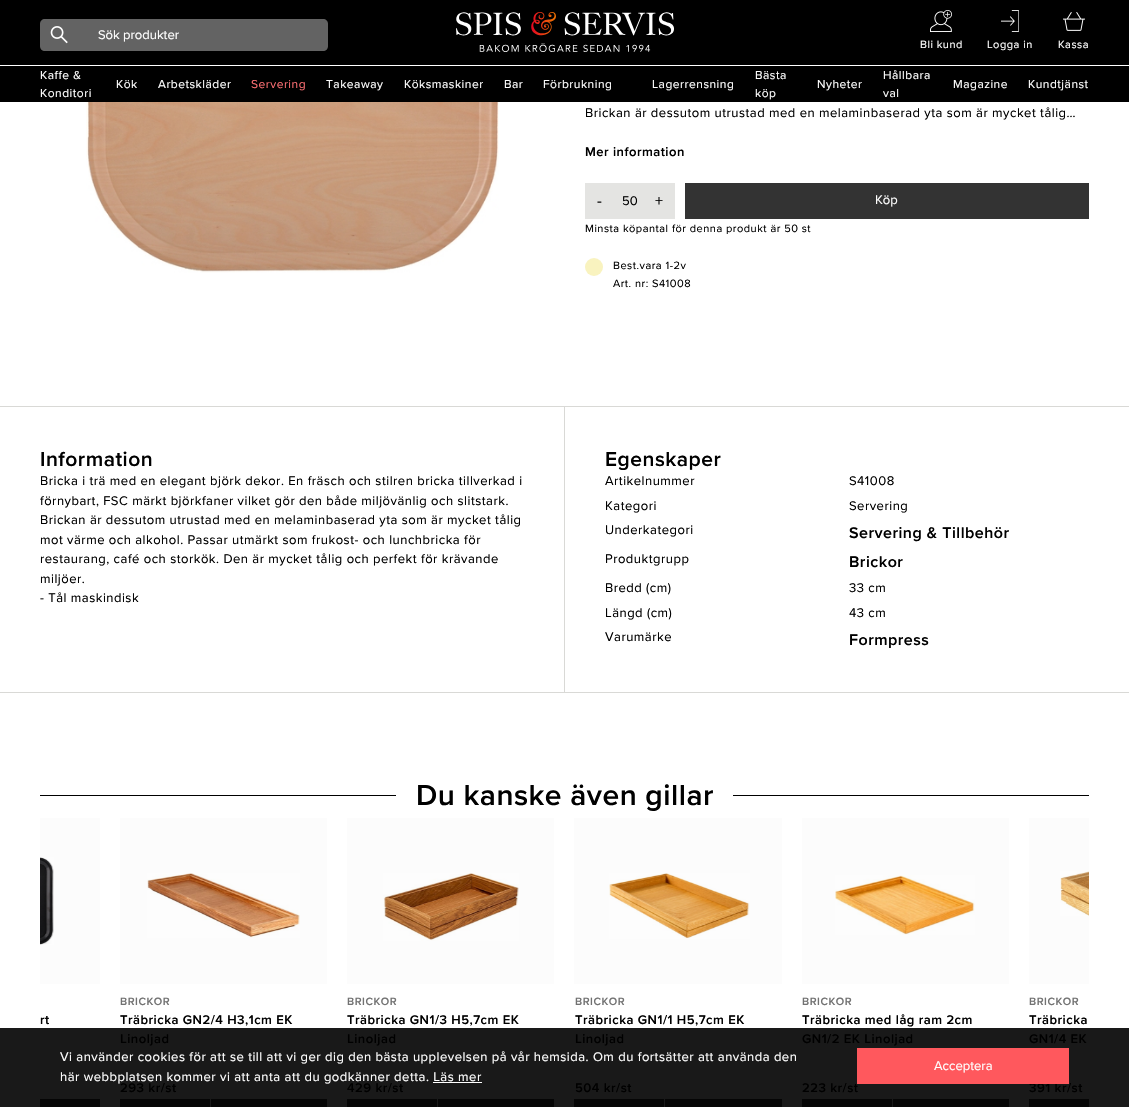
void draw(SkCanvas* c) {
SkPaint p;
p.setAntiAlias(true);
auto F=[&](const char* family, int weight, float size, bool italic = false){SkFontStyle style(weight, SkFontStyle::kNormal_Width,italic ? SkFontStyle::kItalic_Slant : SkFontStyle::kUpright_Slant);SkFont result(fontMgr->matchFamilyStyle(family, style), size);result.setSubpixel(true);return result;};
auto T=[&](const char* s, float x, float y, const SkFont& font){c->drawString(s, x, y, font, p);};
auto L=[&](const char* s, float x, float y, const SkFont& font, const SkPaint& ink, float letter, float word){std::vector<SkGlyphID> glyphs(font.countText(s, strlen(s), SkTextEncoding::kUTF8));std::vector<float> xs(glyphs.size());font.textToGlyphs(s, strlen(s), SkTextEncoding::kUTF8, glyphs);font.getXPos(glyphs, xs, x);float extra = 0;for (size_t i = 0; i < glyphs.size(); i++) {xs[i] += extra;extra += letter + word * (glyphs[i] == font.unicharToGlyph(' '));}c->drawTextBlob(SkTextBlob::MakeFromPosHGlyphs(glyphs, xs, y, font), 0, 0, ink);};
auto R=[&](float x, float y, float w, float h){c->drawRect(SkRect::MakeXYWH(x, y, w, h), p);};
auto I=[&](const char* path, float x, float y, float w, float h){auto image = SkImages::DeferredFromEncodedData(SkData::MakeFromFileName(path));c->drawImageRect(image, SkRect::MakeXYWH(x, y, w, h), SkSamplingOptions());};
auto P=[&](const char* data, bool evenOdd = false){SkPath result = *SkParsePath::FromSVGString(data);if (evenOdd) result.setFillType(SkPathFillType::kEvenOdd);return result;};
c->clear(0xffffffff);
p.setColor(0xff191919);
R(0,1028,1129,79);
p.setColor(0xfffcfcfc);
R(1029,818,60,166);
R(802,818,207,166);
R(574,818,208,166);
R(347,818,207,166);
R(120,818,207,166);
R(40,818,60,166);
p.setColor(0xff000000);
R(0,0,1129,102);
p.setColor(0xff636363);
c->drawPath(P("M45 19h33v32h-33c-3 0-5-2-5-5v-22c0-3 2-5 5-5z"),p);
I("1.png",50,26,18,18);
c->drawPath(P("M78 19h245c3 0 5 2 5 5v22c0 3-2 5-5 5h-245z"),p);
auto f1 = F("Proxima Nova",400,13);
p.setColor(0xffffffff);
T("Sök produkter",98,39,f1);
I("2.png",456,12,218,40);
I("3.png",930,10,22,22);
auto f2 = F("Proxima Nova",400,11);
L("Bli kund",920,48,f2,p,.5,0);
I("4.png",1001,10,18,22);
L("Logga in",987,48,f2,p,.5,0);
I("5.png",1063,12,22,19);
L("Kassa",1058,48,f2,p,.5,0);
R(0,65,1129,1);
auto f3 = F("Proxima Nova",400,12);
L("Kaffe &",40,79,f3,p,.5,0);
L("Konditori",40,97,f3,p,.5,0);
L("Kök",116,88,f3,p,.5,0);
L("Arbetskläder",158,88,f3,p,.5,0);
p.setColor(0xfffe7074);
L("Servering",251,88,f3,p,.5,0);
p.setColor(0xffffffff);
L("Takeaway",326,88,f3,p,.5,0);
L("Köksmaskiner",404,88,f3,p,.5,0);
L("Bar",504,88,f3,p,.5,0);
L("Förbrukning",543,88,f3,p,.5,0);
L("Lagerrensning",652,88,f3,p,.5,0);
L("Bästa",755,79,f3,p,.5,0);
L("köp",755,97,f3,p,.5,0);
L("Nyheter",817,88,f3,p,.5,0);
L("Hållbara",883,79,f3,p,.5,0);
L("val",883,97,f3,p,.5,0);
L("Magazine",953,88,f3,p,.5,0);
L("Kundtjänst",1028,88,f3,p,.5,0);
I("6.png",86,102,413,171);
p.setColor(0xff000000);
L("Brickan är dessutom utrustad med en melaminbaserad yta som är mycket tålig…",585,117,f1,p,.5,0);
auto f4 = F("Proxima Nova",600,13);
L("Mer information",585,156,f4,p,.5,0);
p.setColor(0xffe4e4e2);
R(585,183,90,36);
auto f5 = F("Proxima Nova",400,16);
p.setColor(0xff000000);
L("-",597,206,f5,p,.5,0);
T("50",622,205,f1);
L("+",655,206,f5,p,.5,0);
p.setColor(0xff333333);
R(685,183,404,36);
p.setColor(0xffffffff);
T("Köp",875,204,f1);
p.setColor(0xff000000);
L("Minsta köpantal för denna produkt är 50 st",585,232,f2,p,.5,0);
p.setColor(0xfff9f3bf);
c->drawCircle(594,267,9,p);
p.setColor(0xff000000);
L("Best.vara 1-2v",613,269,f2,p,.5,0);
L("Art. nr: S41008",613,287,f2,p,.5,0);
p.setColor(0xffd9d9d6);
R(0,406,1129,1);
R(0,692,1129,1);
R(564,407,1,285);
auto f6 = F("Proxima Nova",600,21);
p.setColor(0xff000000);
L("Information",40,466,f6,p,.5,0);
L("Bricka i trä med en elegant björk dekor. En fräsch och stilren bricka tillverkad i",40,485,f1,p,.5,0);
L("förnybart, FSC märkt björkfaner vilket gör den både miljövänlig och slitstark.",40,505,f1,p,.5,0);
L("Brickan är dessutom utrustad med en melaminbaserad yta som är mycket tålig",40,524,f1,p,.5,0);
L("mot värme och alkohol. Passar utmärkt som frukost- och lunchbricka för",40,544,f1,p,.5,0);
L("restaurang, café och storkök. Den är mycket tålig och perfekt för krävande",40,563,f1,p,.5,0);
L("miljöer.",40,583,f1,p,.5,0);
L("- Tål maskindisk",40,602,f1,p,.5,0);
L("Egenskaper",605,466,f6,p,.5,0);
L("Artikelnummer",605,485,f1,p,.5,0);
L("S41008",849,485,f1,p,.5,0);
L("Kategori",605,510,f1,p,.5,0);
L("Servering",849,510,f1,p,.5,0);
L("Underkategori",605,534,f1,p,.5,0);
auto f7 = F("Proxima Nova",600,16);
L("Servering & Tillbehör",849,538,f7,p,.5,0);
L("Produktgrupp",605,563,f1,p,.5,0);
L("Brickor",849,567,f7,p,.5,0);
L("Bredd (cm)",605,592,f1,p,.5,0);
L("33 cm",849,592,f1,p,.5,0);
L("Längd (cm)",605,617,f1,p,.5,0);
L("43 cm",849,617,f1,p,.5,0);
L("Varumärke",605,641,f1,p,.5,0);
L("Formpress",849,645,f7,p,.5,0);
R(40,795,356,1);
auto f8 = F("Proxima Nova",600,30);
L("Du kanske även gillar",416,805,f8,p,.5,0);
R(733,795,356,1);
I("7.png",40,857,14,88);
L("rt",40,1024,f4,p,.5,0);
p.setColor(0xff050505);
R(40,1099,60,8);
I("8.png",147,873,153,65);
auto f9 = F("Proxima Nova",600,11);
p.setColor(0xff727272);
L("BRICKOR",120,1005,f9,p,.5,0);
p.setColor(0xff000000);
L("Träbricka GN2/4 H3,1cm EK",120,1024,f4,p,.5,0);
L("Linoljad",120,1043,f4,p,.5,0);
L("293 kr/st",120,1092,f4,p,.5,0);
p.setColor(0xff050505);
R(120,1099,90,8);
R(211,1099,116,8);
I("9.png",383,873,136,68);
p.setColor(0xff727272);
L("BRICKOR",347,1005,f9,p,.5,0);
p.setColor(0xff000000);
L("Träbricka GN1/3 H5,7cm EK",347,1024,f4,p,.5,0);
L("Linoljad",347,1043,f4,p,.5,0);
L("429 kr/st",347,1092,f4,p,.5,0);
p.setColor(0xff050505);
R(347,1099,90,8);
R(438,1099,116,8);
I("10.png",609,873,141,66);
p.setColor(0xff727272);
L("BRICKOR",575,1005,f9,p,.5,0);
p.setColor(0xff000000);
L("Träbricka GN1/1 H5,7cm EK",575,1024,f4,p,.5,0);
L("Linoljad",575,1043,f4,p,.5,0);
L("504 kr/st",575,1092,f4,p,.5,0);
p.setColor(0xff050505);
R(574,1099,90,8);
R(665,1099,117,8);
I("11.png",835,875,140,60);
p.setColor(0xff727272);
L("BRICKOR",802,1005,f9,p,.5,0);
p.setColor(0xff000000);
L("Träbricka med låg ram 2cm",802,1024,f4,p,.5,0);
L("GN1/2 EK Linoljad",802,1043,f4,p,.5,0);
L("223 kr/st",802,1092,f4,p,.5,0);
p.setColor(0xff050505);
R(802,1099,90,8);
R(893,1099,116,8);
I("12.png",1060,871,29,45);
p.setColor(0xff727272);
L("BRICKOR",1029,1005,f9,p,.5,0);
p.setColor(0xff000000);
L("Träbricka",1029,1024,f4,p,.5,0);
L("GN1/4 EK",1029,1043,f4,p,.5,0);
L("391 kr/st",1029,1092,f4,p,.5,0);
p.setColor(0xff050505);
R(1029,1099,60,8);
p.setColor(0xffffffff);
L("Vi använder cookies för att se till att vi ger dig den bästa upplevelsen på vår hemsida. Om du fortsätter att använda den",60,1061,f1,p,.5,0);
L("här webbplatsen kommer vi att anta att du godkänner detta. Läs mer",60,1081,f1,p,.5,0);
R(433,1082,49,1);
p.setColor(0xffff585d);
R(857,1048,212,36);
p.setColor(0xffffffff);
T("Acceptera",934,1070,f1);
}
